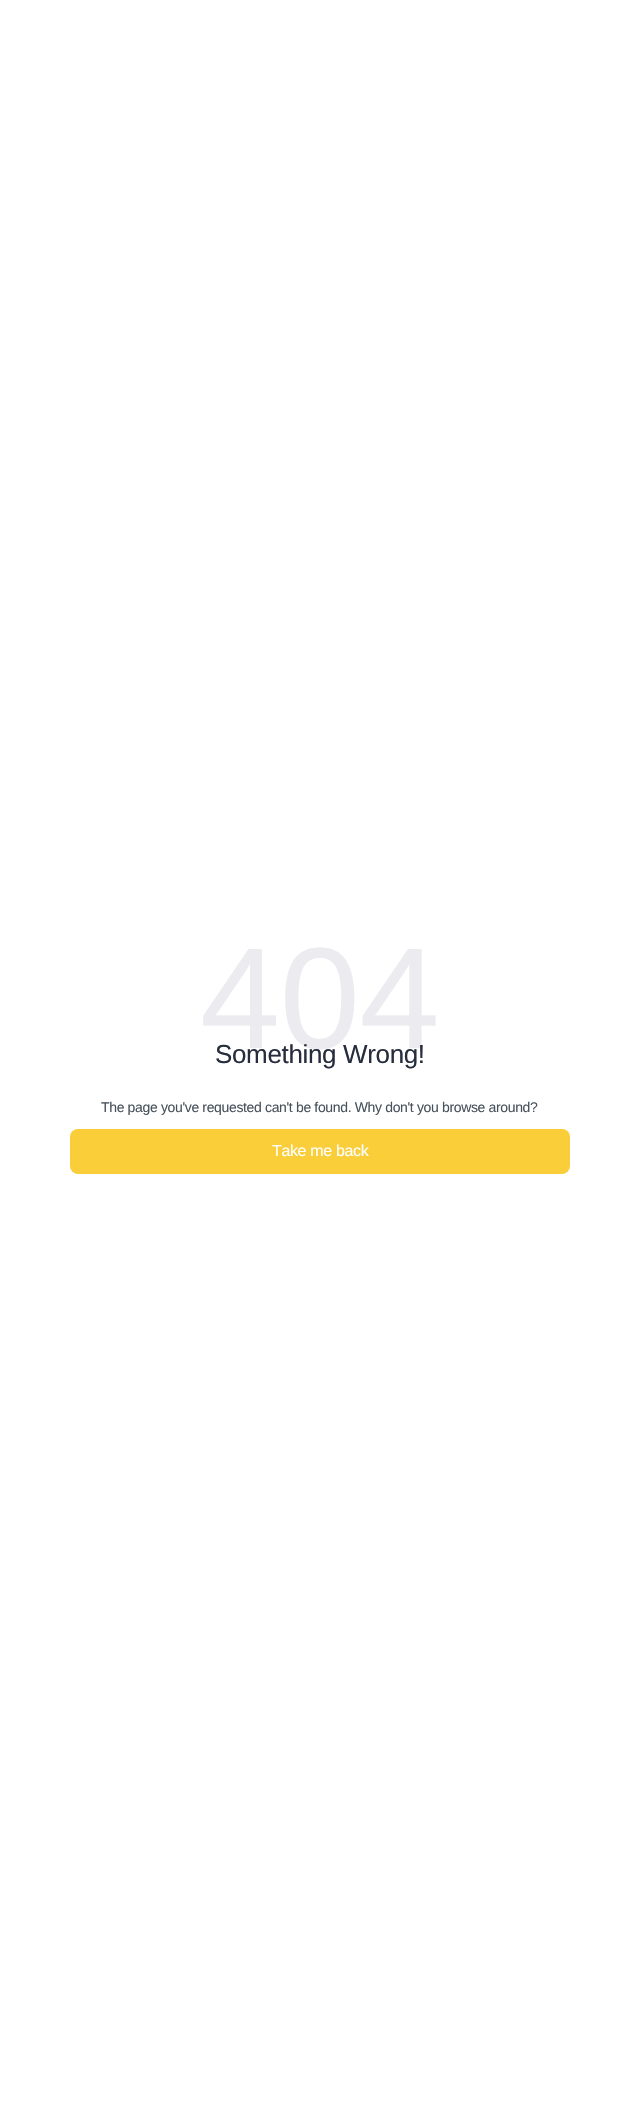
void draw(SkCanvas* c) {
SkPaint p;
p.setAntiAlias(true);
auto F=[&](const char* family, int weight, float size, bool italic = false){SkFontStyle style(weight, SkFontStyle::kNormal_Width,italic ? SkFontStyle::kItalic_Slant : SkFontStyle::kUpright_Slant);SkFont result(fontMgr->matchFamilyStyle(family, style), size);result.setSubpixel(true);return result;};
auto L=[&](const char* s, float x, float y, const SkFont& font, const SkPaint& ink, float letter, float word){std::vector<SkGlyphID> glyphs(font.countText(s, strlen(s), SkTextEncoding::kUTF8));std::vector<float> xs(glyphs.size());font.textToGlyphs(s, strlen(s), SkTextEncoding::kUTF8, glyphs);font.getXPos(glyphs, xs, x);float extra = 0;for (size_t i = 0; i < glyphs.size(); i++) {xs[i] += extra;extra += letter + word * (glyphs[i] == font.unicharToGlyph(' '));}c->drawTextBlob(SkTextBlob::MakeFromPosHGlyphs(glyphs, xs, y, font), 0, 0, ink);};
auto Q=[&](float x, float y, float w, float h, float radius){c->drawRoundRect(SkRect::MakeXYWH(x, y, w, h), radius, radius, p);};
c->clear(0xffffffff);
auto f1 = F("Liberation Sans",400,144);
p.setColor(0xffebebf0);
L("404",200,1048,f1,p,-.35,0);
auto f2 = F("Liberation Sans",400,26);
p.setColor(0xff262d3d);
L("Something Wrong!",215,1063,f2,p,-.35,0);
auto f3 = F("Liberation Sans",400,14);
p.setColor(0xff48525c);
L("The page you've requested can't be found. Why don't you browse around?",101,1112,f3,p,-.35,0);
p.setColor(0xfff9ce38);
Q(70,1129,500,45,8);
auto f4 = F("Liberation Sans",400,16);
p.setColor(0xfffefefe);
L("Take me back",272,1156,f4,p,-.35,0);
}
